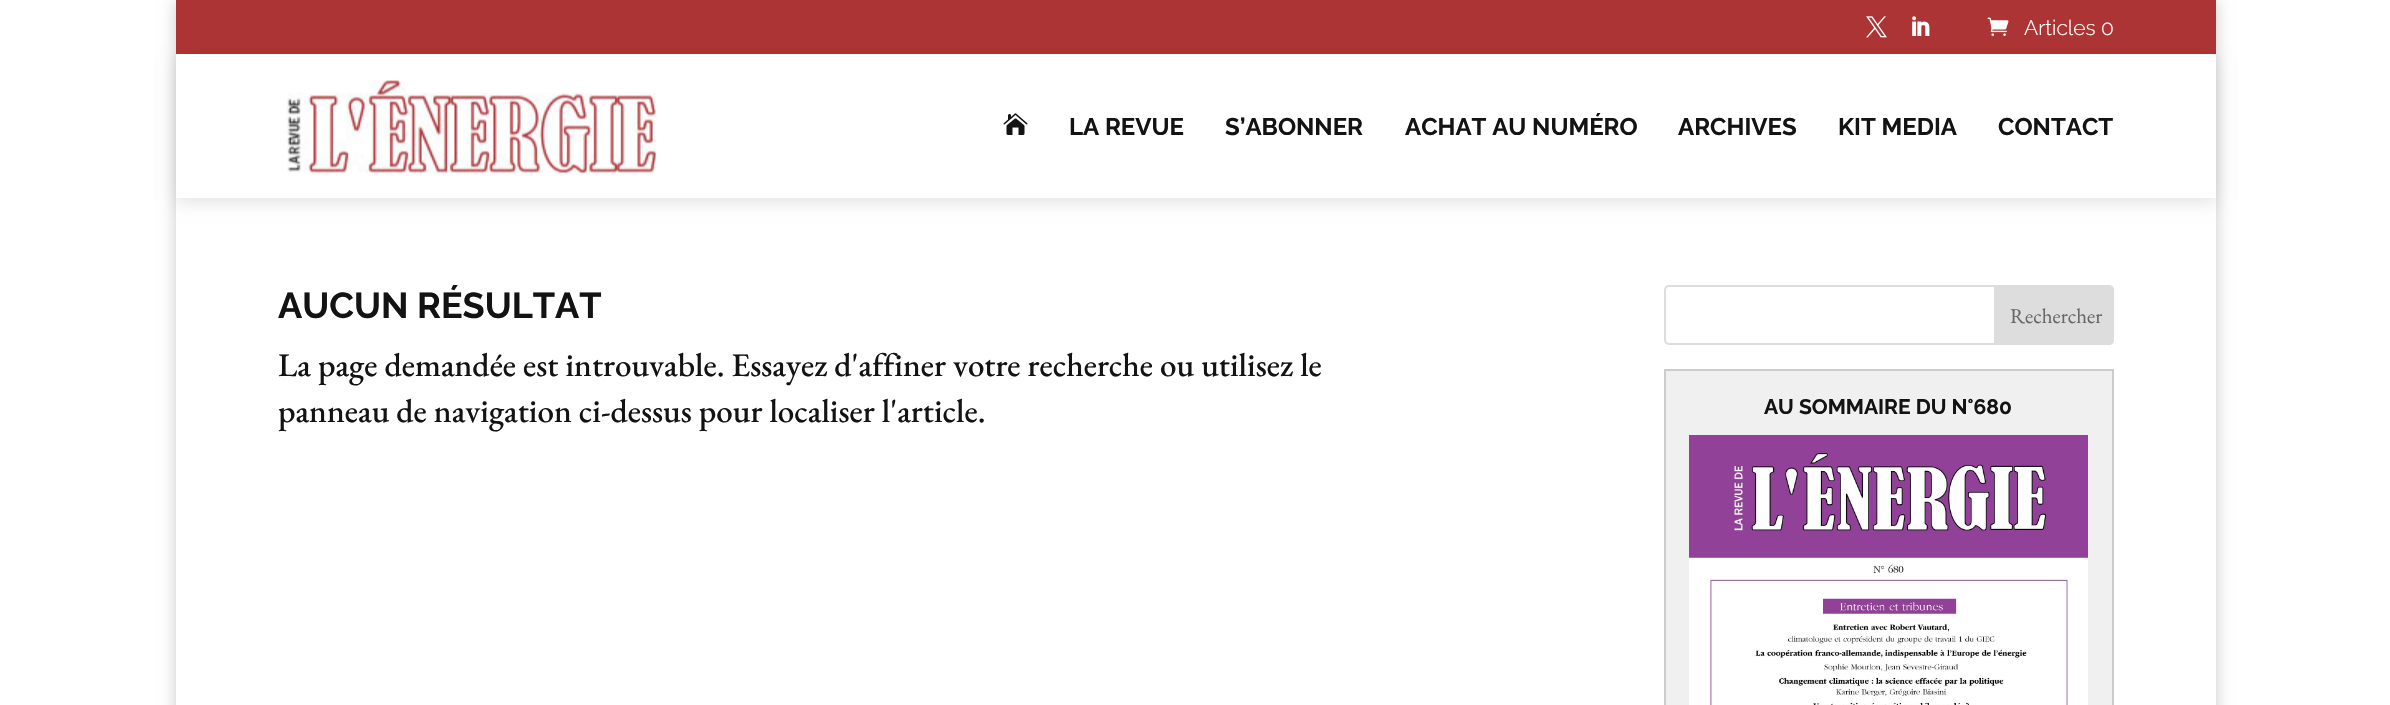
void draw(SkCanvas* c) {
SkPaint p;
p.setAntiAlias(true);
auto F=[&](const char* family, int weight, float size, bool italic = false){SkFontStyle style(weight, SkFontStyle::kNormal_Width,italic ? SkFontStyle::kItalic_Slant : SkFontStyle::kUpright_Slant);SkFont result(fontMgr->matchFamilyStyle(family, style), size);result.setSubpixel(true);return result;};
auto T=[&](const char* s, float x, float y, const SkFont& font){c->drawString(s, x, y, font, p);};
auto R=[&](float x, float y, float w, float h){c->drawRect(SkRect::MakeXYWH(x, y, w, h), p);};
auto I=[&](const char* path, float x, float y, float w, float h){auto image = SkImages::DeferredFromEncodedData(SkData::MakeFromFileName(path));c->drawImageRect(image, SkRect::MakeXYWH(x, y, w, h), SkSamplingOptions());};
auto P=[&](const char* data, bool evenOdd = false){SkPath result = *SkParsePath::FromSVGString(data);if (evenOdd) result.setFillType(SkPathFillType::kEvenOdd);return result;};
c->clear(0xffffffff);
p.setColor(0x33000000);
p.setMaskFilter(SkMaskFilter::MakeBlur(kNormal_SkBlurStyle, 7.5));
c->drawRect(SkRect::MakeXYWH(176,0,2040,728),p);
p.setMaskFilter(nullptr);
p.setColor(0xffad3434);
R(176,0,2040,54);
I("1.png",1866,16,21,22);
I("2.png",1912,16,18,20);
I("3.png",1987,17,22,19);
auto f1 = F("Raleway",300,21);
p.setColor(0xffffffff);
T("Articles 0",2024,35,f1);
R(176,198,2040,507);
p.setColor(0x1a000000);
p.setMaskFilter(SkMaskFilter::MakeBlur(kNormal_SkBlurStyle, 7.5));
c->drawRect(SkRect::MakeXYWH(176,59,2040,144),p);
p.setMaskFilter(nullptr);
p.setColor(0xffffffff);
R(176,54,2040,144);
I("4.png",286,80,370,93);
I("5.png",1003,113,25,22);
auto f2 = F("Raleway",700,24);
p.setColor(0xff141313);
T("LA REVUE",1069,135,f2);
T("S’ABONNER",1225,135,f2);
T("ACHAT AU NUMÉRO",1405,135,f2);
T("ARCHIVES",1678,135,f2);
T("KIT MEDIA",1838,135,f2);
T("CONTACT",1998,135,f2);
auto f3 = F("Raleway",700,36);
T("AUCUN RÉSULTAT",278,318,f3);
auto f4 = F("EB Garamond",500,33);
T("La page demandée est introuvable. Essayez d'affiner votre recherche ou utilisez le",278,376,f4);
T("panneau de navigation ci-dessus pour localiser l'article.",278,422,f4);
p.setStroke(true);
p.setStrokeWidth(2);
p.setColor(0xffdddddd);
c->drawRoundRect(SkRect::MakeXYWH(1665,286,448,58),4,4,p);
p.setStroke(false);
c->drawPath(P("M1995 286h114c2 0 4 2 4 4v50c0 2-2 4-4 4h-114z"),p);
p.setStroke(true);
c->drawPath(P("M1995 286h114c2 0 4 2 4 4v50c0 2-2 4-4 4h-114z"),p);
auto f5 = F("EB Garamond",400,21);
p.setStroke(false);
p.setColor(0xff666666);
T("Rechercher",2010,323,f5);
p.setColor(0xfff0f0f0);
c->drawRect(SkRect::MakeXYWH(1665,370,448,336),p);
p.setStroke(true);
p.setColor(0xffcccccc);
c->drawRect(SkRect::MakeXYWH(1665,370,448,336),p);
auto f6 = F("Raleway",700,21);
p.setStroke(false);
p.setColor(0xff141313);
T("AU SOMMAIRE DU N°680",1764,414,f6);
I("6.png",1689,435,399,270);
}
